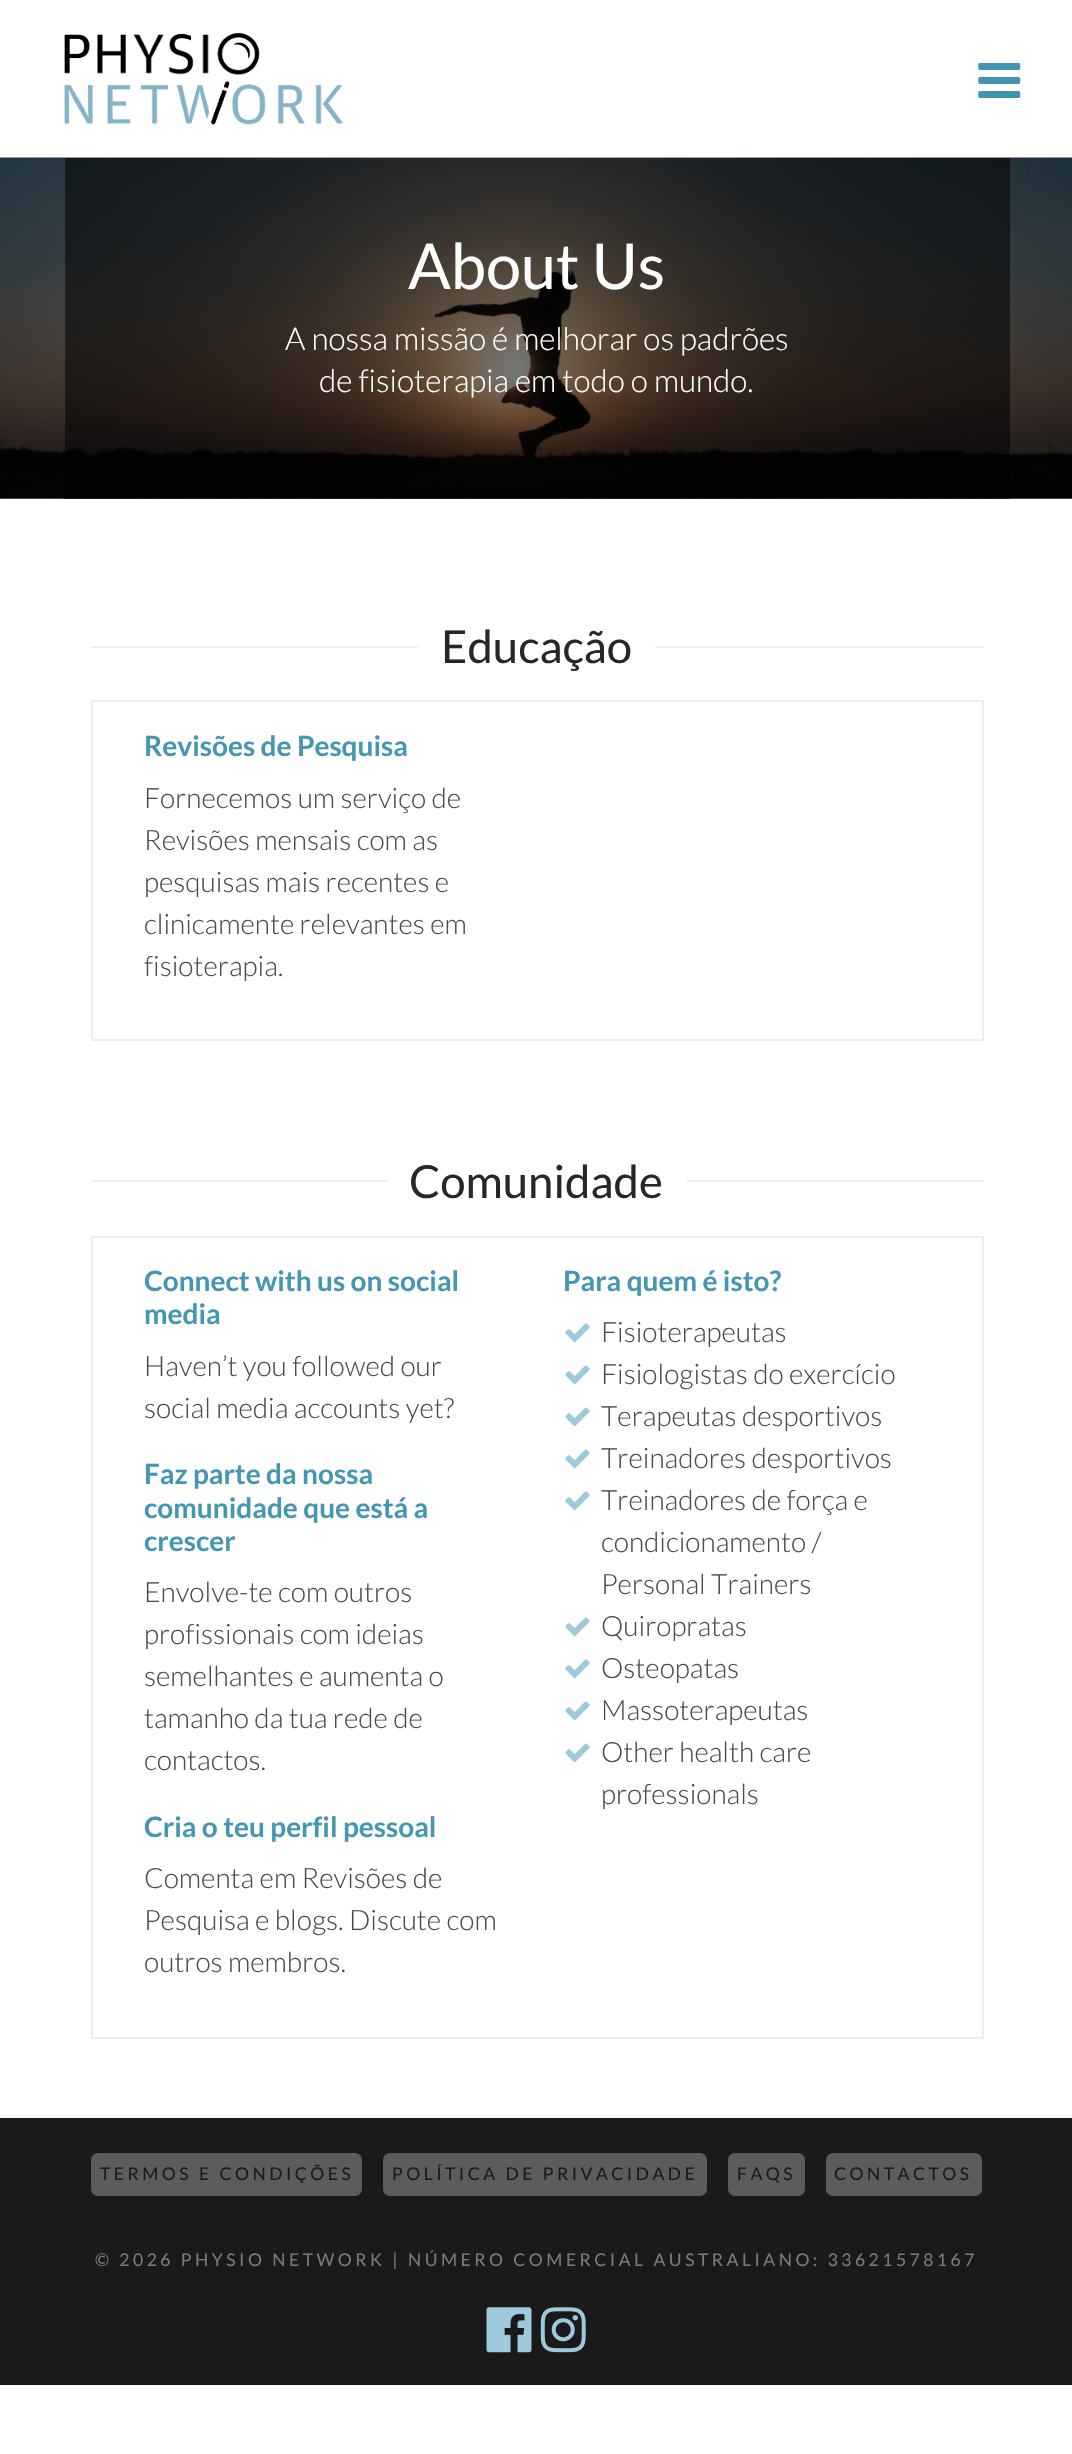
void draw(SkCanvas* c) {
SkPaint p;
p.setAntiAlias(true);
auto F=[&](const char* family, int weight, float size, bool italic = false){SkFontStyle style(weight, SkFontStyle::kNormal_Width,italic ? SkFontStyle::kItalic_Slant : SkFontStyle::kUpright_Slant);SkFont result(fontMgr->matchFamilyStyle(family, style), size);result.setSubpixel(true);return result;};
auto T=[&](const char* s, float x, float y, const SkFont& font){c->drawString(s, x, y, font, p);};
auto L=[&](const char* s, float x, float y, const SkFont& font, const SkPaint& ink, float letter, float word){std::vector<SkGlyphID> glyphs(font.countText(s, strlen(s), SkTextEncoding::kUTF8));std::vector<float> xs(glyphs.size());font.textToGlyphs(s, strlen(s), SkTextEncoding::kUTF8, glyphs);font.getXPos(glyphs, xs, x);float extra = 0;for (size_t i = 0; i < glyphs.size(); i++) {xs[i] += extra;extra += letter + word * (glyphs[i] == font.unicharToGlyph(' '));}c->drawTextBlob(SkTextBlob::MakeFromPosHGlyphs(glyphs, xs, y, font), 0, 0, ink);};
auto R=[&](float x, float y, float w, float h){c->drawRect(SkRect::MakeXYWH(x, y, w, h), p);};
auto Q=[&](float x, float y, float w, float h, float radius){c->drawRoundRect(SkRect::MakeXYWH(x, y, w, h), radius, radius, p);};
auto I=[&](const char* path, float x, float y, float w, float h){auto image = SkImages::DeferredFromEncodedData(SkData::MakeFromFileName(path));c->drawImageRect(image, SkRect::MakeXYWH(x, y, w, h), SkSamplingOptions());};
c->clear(0xffffffff);
I("1.png",64,32,280,93);
I("2.png",978,63,43,35);
I("3.png",0,157,1072,342);
p.setColor(0x8c000000);
R(65,158,945,341);
auto f1 = F("Lato",400,63);
p.setColor(0xffffffff);
T("About Us",408,289,f1);
auto f2 = F("Lato",300,31.5);
T("A nossa missão é melhorar os padrões",285,350,f2);
T("de fisioterapia em todo o mundo.",319,392,f2);
p.setColor(0xfff0f0f0);
R(91,646,327,2);
auto f3 = F("Lato",400,45.5);
p.setColor(0xff272727);
T("Educação",441,663,f3);
p.setColor(0xfff0f0f0);
R(655,646,329,2);
p.setStroke(true);
p.setStrokeWidth(2);
p.setColor(0xffeeeeee);
c->drawRect(SkRect::MakeXYWH(92,701,891,339),p);
auto f4 = F("Lato",700,28);
p.setStroke(false);
p.setColor(0xff4496b2);
T("Revisões de Pesquisa",144,756,f4);
auto f5 = F("Lato",300,28);
p.setColor(0xff4c4949);
T("Fornecemos um serviço de",144,808,f5);
T("Revisões mensais com as",144,850,f5);
T("pesquisas mais recentes e",144,892,f5);
T("clinicamente relevantes em",144,934,f5);
T("fisioterapia.",144,976,f5);
p.setColor(0xfff0f0f0);
R(91,1180,296,2);
p.setColor(0xff272727);
T("Comunidade",409,1198,f3);
p.setColor(0xfff0f0f0);
R(686,1180,298,2);
p.setStroke(true);
p.setColor(0xffeeeeee);
c->drawRect(SkRect::MakeXYWH(92,1237,891,801),p);
p.setStroke(false);
p.setColor(0xff4496b2);
T("Connect with us on social",144,1291,f4);
T("media",144,1324,f4);
p.setColor(0xff4c4949);
T("Haven’t you followed our",144,1376,f5);
T("social media accounts yet?",144,1418,f5);
p.setColor(0xff4496b2);
T("Faz parte da nossa",144,1484,f4);
T("comunidade que está a",144,1518,f4);
T("crescer",144,1551,f4);
p.setColor(0xff4c4949);
T("Envolve-te com outros",144,1602,f5);
T("profissionais com ideias",144,1644,f5);
T("semelhantes e aumenta o",144,1686,f5);
T("tamanho da tua rede de",144,1728,f5);
T("contactos.",144,1770,f5);
p.setColor(0xff4496b2);
T("Cria o teu perfil pessoal",144,1837,f4);
p.setColor(0xff4c4949);
T("Comenta em Revisões de",144,1888,f5);
T("Pesquisa e blogs. Discute com",144,1930,f5);
T("outros membros.",144,1972,f5);
p.setColor(0xff4496b2);
T("Para quem é isto?",563,1291,f4);
I("4.png",565,1323,25,19);
p.setColor(0xff4c4949);
T("Fisioterapeutas",601,1342,f5);
I("4.png",565,1365,25,19);
T("Fisiologistas do exercício",601,1384,f5);
I("4.png",565,1407,25,19);
T("Terapeutas desportivos",601,1426,f5);
I("4.png",565,1449,25,19);
T("Treinadores desportivos",601,1468,f5);
I("4.png",565,1491,25,19);
T("Treinadores de força e",601,1510,f5);
T("condicionamento /",601,1552,f5);
T("Personal Trainers",601,1594,f5);
I("4.png",565,1617,25,19);
T("Quiropratas",601,1636,f5);
I("4.png",565,1659,25,19);
T("Osteopatas",601,1678,f5);
I("4.png",565,1701,25,19);
T("Massoterapeutas",601,1720,f5);
I("4.png",565,1743,25,19);
T("Other health care",601,1762,f5);
T("professionals",601,1804,f5);
p.setColor(0xff1a1a1a);
R(0,2118,1072,267);
p.setColor(0xff5d5b5b);
Q(91,2153,271,43,7);
auto f6 = F("Lato",400,17.5);
p.setColor(0xff1a1a1a);
L("TERMOS E CONDIÇÕES",100,2180,f6,p,3.5,0);
p.setColor(0xff5d5b5b);
Q(383,2153,324,43,7);
p.setColor(0xff1a1a1a);
L("POLÍTICA DE PRIVACIDADE",392,2180,f6,p,3.5,0);
p.setColor(0xff5d5b5b);
Q(728,2153,77,43,7);
p.setColor(0xff1a1a1a);
L("FAQS",737,2180,f6,p,3.5,0);
p.setColor(0xff5d5b5b);
Q(826,2153,156,43,7);
p.setColor(0xff1a1a1a);
L("CONTACTOS",834,2180,f6,p,3.5,0);
p.setColor(0xff7a7a7a);
L("© 2026 PHYSIO NETWORK | NÚMERO COMERCIAL AUSTRALIANO: 33621578167",95,2266,f6,p,3.5,0);
I("5.png",486,2307,46,46);
I("6.png",540,2307,46,46);
}
